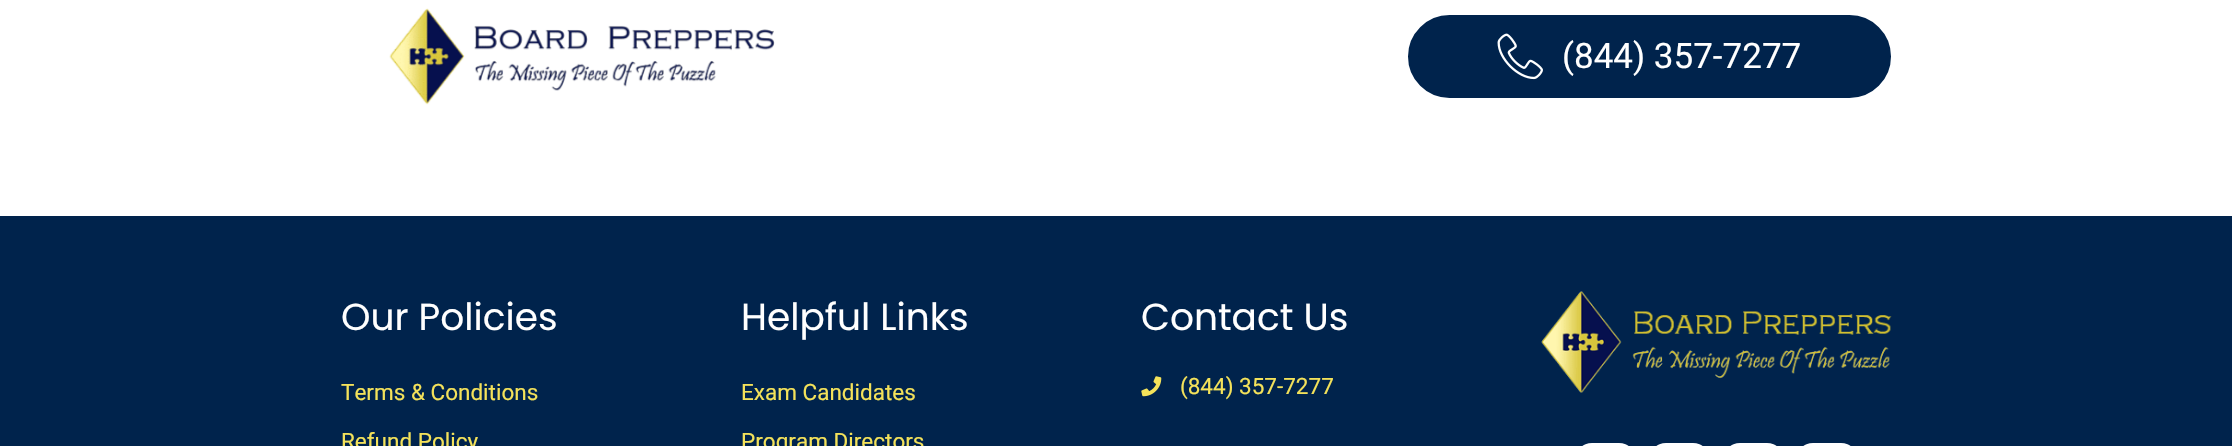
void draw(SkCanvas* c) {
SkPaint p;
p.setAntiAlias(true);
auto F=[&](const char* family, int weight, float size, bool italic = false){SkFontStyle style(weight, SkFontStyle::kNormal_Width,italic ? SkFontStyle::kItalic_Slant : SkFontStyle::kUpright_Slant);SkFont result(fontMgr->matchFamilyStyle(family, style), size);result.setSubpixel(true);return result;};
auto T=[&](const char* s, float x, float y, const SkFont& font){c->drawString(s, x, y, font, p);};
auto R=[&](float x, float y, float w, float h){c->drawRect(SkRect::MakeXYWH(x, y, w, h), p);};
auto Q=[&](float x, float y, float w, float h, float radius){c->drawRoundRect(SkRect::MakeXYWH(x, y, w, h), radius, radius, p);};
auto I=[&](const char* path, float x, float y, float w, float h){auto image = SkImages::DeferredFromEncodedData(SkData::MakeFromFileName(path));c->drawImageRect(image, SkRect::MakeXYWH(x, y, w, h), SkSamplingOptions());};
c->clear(0xffffffff);
I("1.png",389,8,386,97);
p.setColor(0xff00234c);
c->drawRoundRect(SkRect::MakeXYWH(1410,17,479,79),39.5,39.5,p);
p.setStroke(true);
p.setStrokeWidth(4);
c->drawRoundRect(SkRect::MakeXYWH(1410,17,479,79),39.5,39.5,p);
I("2.png",1497,33,46,47);
auto f1 = F("Roboto",400,35);
p.setStroke(false);
p.setColor(0xffffffff);
T("(844) 357-7277",1562,68,f1);
p.setColor(0xff00234c);
R(0,216,2232,230);
auto f2 = F("Poppins",400,37.5);
p.setColor(0xffffffff);
T("Our Policies",341,330,f2);
auto f3 = F("Roboto",400,22.5);
p.setColor(0xfff4e25a);
T("Terms & Conditions",341,400,f3);
T("Refund Policy",341,449,f3);
p.setColor(0xffffffff);
T("Helpful Links",741,330,f2);
p.setColor(0xfff4e25a);
T("Exam Candidates",741,400,f3);
T("Program Directors",741,449,f3);
p.setColor(0xffffffff);
T("Contact Us",1141,330,f2);
I("3.png",1141,376,21,21);
p.setColor(0xfff4e25a);
T("(844) 357-7277",1180,394,f3);
I("4.png",1541,291,351,102);
p.setColor(0xffffffff);
Q(1575,443,61,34,30.5);
Q(1649,443,61,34,30.5);
Q(1723,443,61,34,30.5);
Q(1796,443,62,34,30.5);
}
